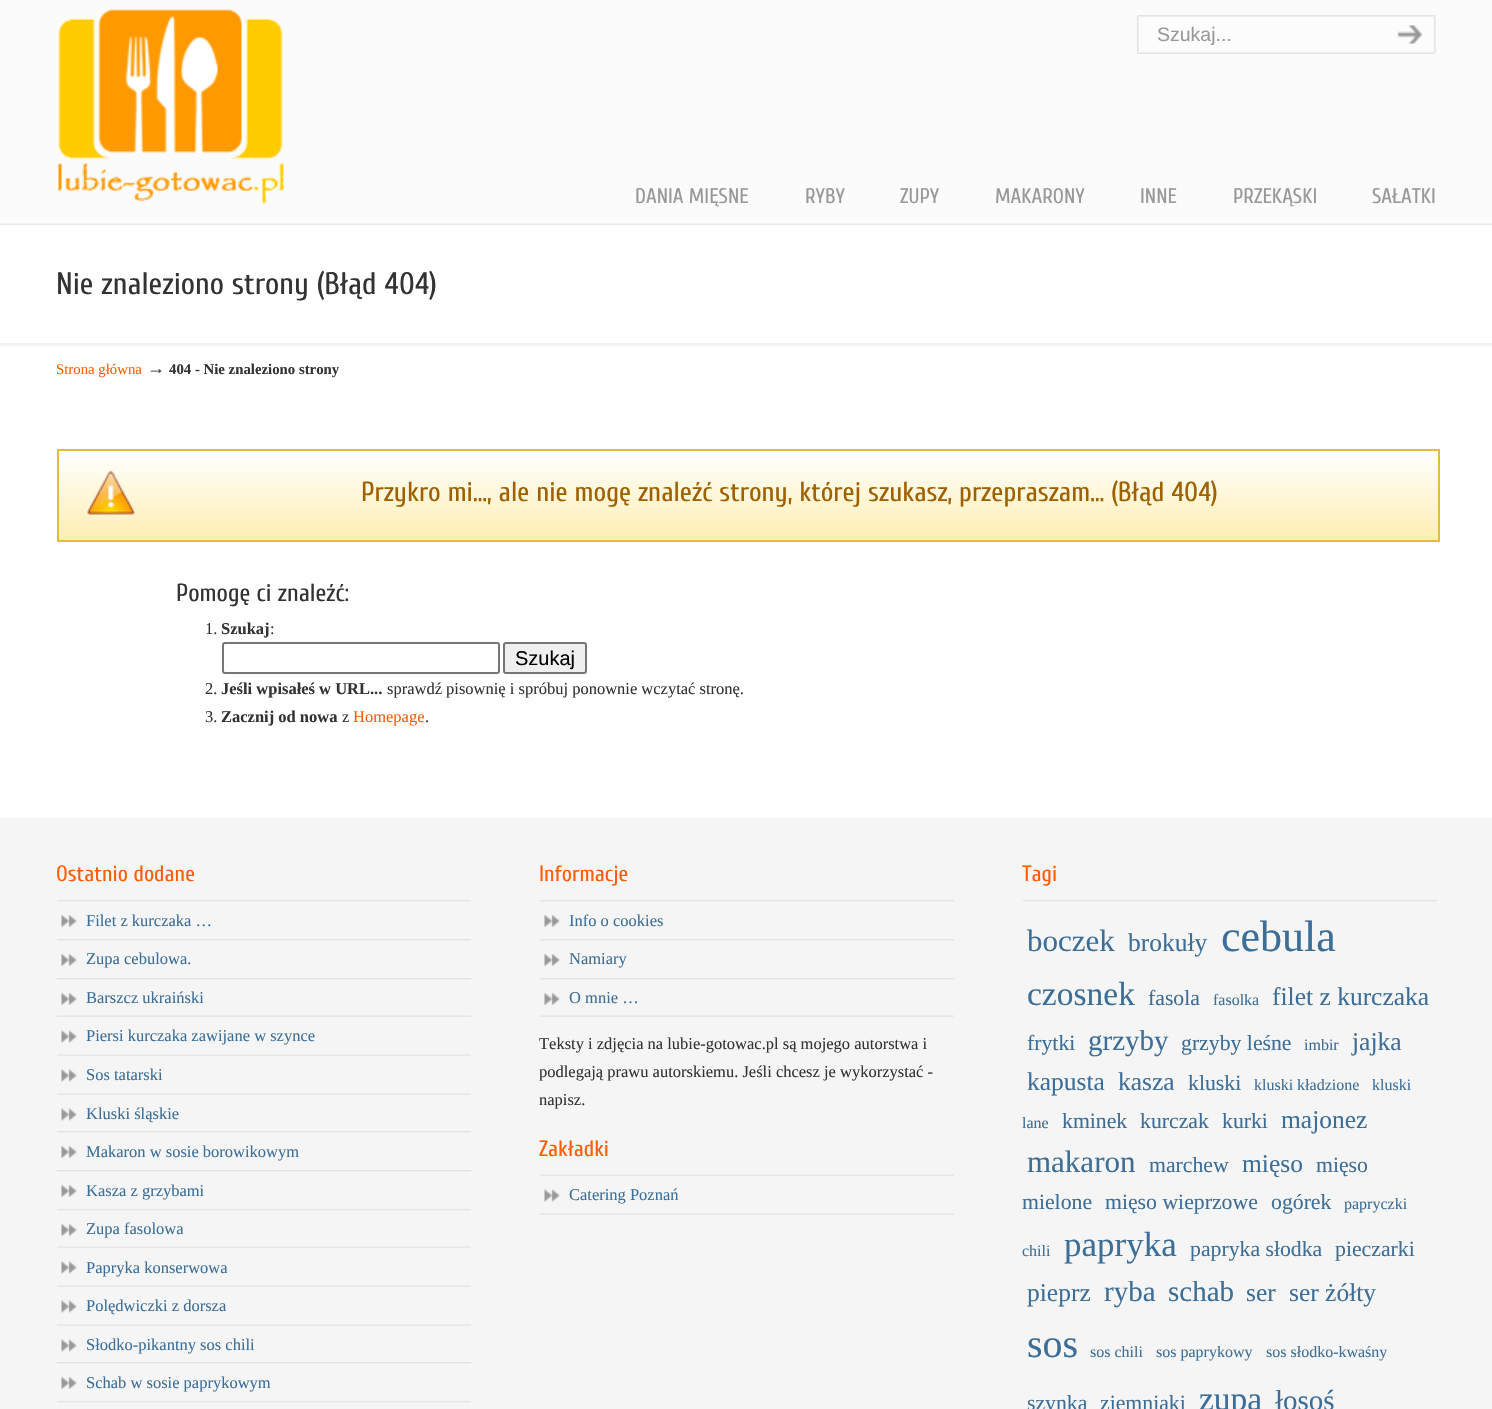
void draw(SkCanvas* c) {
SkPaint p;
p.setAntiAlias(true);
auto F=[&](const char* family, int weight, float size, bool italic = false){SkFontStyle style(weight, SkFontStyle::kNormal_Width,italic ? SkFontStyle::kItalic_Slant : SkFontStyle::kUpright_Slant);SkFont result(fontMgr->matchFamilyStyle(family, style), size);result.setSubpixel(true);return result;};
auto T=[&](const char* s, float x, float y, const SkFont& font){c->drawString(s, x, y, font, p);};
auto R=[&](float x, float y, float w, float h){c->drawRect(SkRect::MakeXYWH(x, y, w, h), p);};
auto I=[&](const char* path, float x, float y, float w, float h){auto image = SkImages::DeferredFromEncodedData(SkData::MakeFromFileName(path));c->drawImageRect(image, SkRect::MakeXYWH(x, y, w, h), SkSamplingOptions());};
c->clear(0xfffbfbfb);
I("1.png",57,9,227,195);
I("2.png",1137,15,239,39);
auto f1 = F("Liberation Sans",400,19.5);
p.setColor(0xff999999);
T("Szukaj...",1157,41,f1);
I("3.png",1375,15,61,39);
I("4.png",0,223,1492,2);
auto f2 = F("Cuprum",400,21);
T("DANIA MIĘSNE",635,203,f2);
T("RYBY",805,203,f2);
T("ZUPY",900,203,f2);
T("MAKARONY",995,203,f2);
T("INNE",1140,203,f2);
T("PRZEKĄSKI",1233,203,f2);
T("SAŁATKI",1372,203,f2);
p.setColor(0xffffffff);
R(0,225,1492,593);
auto f3 = F("Cuprum",400,31);
p.setColor(0xff333333);
T("Nie znaleziono strony (Błąd 404)",56,294,f3);
p.setColor(0xfff2f2f2);
R(0,343,1492,3);
auto f4 = F("Liberation Serif",400,14.8);
p.setColor(0xfffe5e08);
T("Strona główna",56,374,f4);
auto f5 = F("Liberation Serif",400,18);
p.setColor(0xff333333);
T("→",147,374,f5);
auto f6 = F("Liberation Serif",700,14.8);
T("404 - Nie znaleziono strony",169,374,f6);
{
const SkColor colors[] = {0xffffffff,0xfffeefb3};
const float stops[] = {0,1};
const SkPoint ends[] = {{749,450}, {749,540}};
p.setShader(SkGradientShader::MakeLinear(ends, colors, stops, 2, SkTileMode::kClamp));
p.setAlpha(255);
}
R(59,453,1379,87);
p.setStroke(true);
p.setStrokeWidth(2);
p.setShader(nullptr);
p.setColor(0xffe5bc3b);
c->drawRect(SkRect::MakeXYWH(58,450,1381,91),p);
I("5.png",87,470,48,45);
auto f7 = F("Cuprum",400,27.5);
p.setStroke(false);
p.setColor(0xff9f6000);
T("Przykro mi…, ale nie mogę znaleźć strony, której szukasz, przepraszam… (Błąd 404)",361,501,f7);
auto f8 = F("Cuprum",400,24.75);
p.setColor(0xff333333);
T("Pomogę ci znaleźć:",176,601,f8);
auto f9 = F("Liberation Serif",400,16.5);
T("1.",205,634,f9);
auto f10 = F("Liberation Serif",700,16.5);
T("Szukaj",221,634,f10);
T(":",270,634,f9);
p.setStroke(true);
p.setColor(0xff767676);
c->drawRoundRect(SkRect::MakeXYWH(223,643,276,30),2,2,p);
p.setStroke(false);
p.setColor(0xffefefef);
c->drawRoundRect(SkRect::MakeXYWH(504,643,82,30),2,2,p);
p.setStroke(true);
p.setColor(0xff767676);
c->drawRoundRect(SkRect::MakeXYWH(504,643,82,30),2,2,p);
auto f11 = F("Liberation Sans",400,20);
p.setStroke(false);
p.setColor(0xff000000);
T("Szukaj",515,665,f11);
p.setColor(0xff333333);
T("2.",205,694,f9);
T("Jeśli wpisałeś w URL...",221,694,f10);
T("sprawdź pisownię i spróbuj ponownie wczytać stronę.",387,694,f9);
T("3.",205,722,f9);
T("Zacznij od nowa",221,722,f10);
T("z",342,722,f9);
p.setColor(0xfffe5e08);
T("Homepage",353,722,f9);
p.setColor(0xff333333);
T(".",425,722,f9);
p.setColor(0xfff5f5f5);
R(0,818,1492,591);
I("6.png",57,900,414,2);
auto f12 = F("Cuprum",400,22.25);
p.setColor(0xfffe5e08);
T("Ostatnio dodane",56,881,f12);
I("7.png",61,915,16,12);
I("6.png",57,939,414,2);
p.setColor(0xff3d6e97);
T("Filet z kurczaka …",86,926,f9);
I("7.png",61,954,16,12);
I("6.png",57,978,414,2);
T("Zupa cebulowa.",86,964,f9);
I("7.png",61,993,16,12);
I("8.png",57,1015,414,2);
T("Barszcz ukraiński",86,1003,f9);
I("9.png",61,1030,16,13);
I("8.png",57,1054,414,2);
T("Piersi kurczaka zawijane w szynce",86,1041,f9);
I("9.png",61,1069,16,13);
I("8.png",57,1093,414,2);
T("Sos tatarski",86,1080,f9);
I("9.png",61,1108,16,13);
I("6.png",57,1131,414,2);
T("Kluski śląskie",86,1119,f9);
I("7.png",61,1146,16,12);
I("6.png",57,1170,414,2);
T("Makaron w sosie borowikowym",86,1157,f9);
I("7.png",61,1185,16,12);
I("6.png",57,1209,414,2);
T("Kasza z grzybami",86,1196,f9);
I("7.png",61,1224,16,12);
I("8.png",57,1246,414,2);
T("Zupa fasolowa",86,1234,f9);
I("9.png",61,1261,16,13);
I("8.png",57,1285,414,2);
T("Papryka konserwowa",86,1273,f9);
I("9.png",61,1300,16,13);
I("8.png",57,1324,414,2);
T("Polędwiczki z dorsza",86,1311,f9);
I("9.png",61,1339,16,13);
I("6.png",57,1362,414,2);
T("Słodko-pikantny sos chili",86,1350,f9);
I("7.png",61,1377,16,12);
I("6.png",57,1401,414,2);
T("Schab w sosie paprykowym",86,1388,f9);
I("6.png",540,900,414,2);
p.setColor(0xfffe5e08);
T("Informacje",539,881,f12);
I("10.png",544,915,16,12);
I("6.png",540,939,414,2);
p.setColor(0xff3d6e97);
T("Info o cookies",569,926,f9);
I("10.png",544,954,16,12);
I("6.png",540,978,414,2);
T("Namiary",569,964,f9);
I("10.png",544,993,16,12);
I("8.png",540,1015,414,2);
T("O mnie …",569,1003,f9);
p.setColor(0xff333333);
T("Teksty i zdjęcia na lubie-gotowac.pl są mojego autorstwa i",539,1049,f9);
T("podlegają prawu autorskiemu. Jeśli chcesz je wykorzystać -",539,1077,f9);
T("napisz.",539,1105,f9);
I("8.png",540,1174,414,2);
p.setColor(0xfffe5e08);
T("Zakładki",539,1156,f12);
I("11.png",544,1189,16,13);
I("8.png",540,1213,414,2);
p.setColor(0xff3d6e97);
T("Catering Poznań",569,1200,f9);
I("6.png",1023,900,414,2);
p.setColor(0xfffe5e08);
T("Tagi",1022,881,f12);
auto f13 = F("Liberation Serif",400,31);
p.setColor(0xff3d6e97);
T("boczek",1027,951,f13);
auto f14 = F("Liberation Serif",400,25.5);
T("brokuły",1128,951,f14);
auto f15 = F("Liberation Serif",400,44);
T("cebula",1221,951,f15);
auto f16 = F("Liberation Serif",400,33.5);
T("czosnek",1027,1005,f16);
auto f17 = F("Liberation Serif",400,21.75);
T("fasola",1148,1005,f17);
auto f18 = F("Liberation Serif",400,16);
T("fasolka",1213,1005,f18);
T("filet z kurczaka",1272,1005,f14);
T("frytki",1027,1050,f17);
auto f19 = F("Liberation Serif",400,29);
T("grzyby",1088,1050,f19);
T("grzyby leśne",1181,1050,f17);
T("imbir",1304,1050,f18);
T("jajka",1352,1050,f14);
T("kapusta",1027,1090,f14);
T("kasza",1118,1090,f14);
T("kluski",1188,1090,f17);
T("kluski kładzione",1254,1090,f18);
T("kluski",1372,1090,f18);
T("lane",1022,1128,f18);
T("kminek",1062,1128,f17);
T("kurczak",1140,1128,f17);
T("kurki",1222,1128,f17);
T("majonez",1281,1128,f14);
T("makaron",1027,1172,f13);
T("marchew",1149,1172,f17);
T("mięso",1242,1172,f14);
T("mięso",1316,1172,f17);
T("mielone",1022,1209,f17);
T("mięso wieprzowe",1105,1209,f17);
T("ogórek",1271,1209,f17);
T("papryczki",1344,1209,f18);
T("chili",1022,1256,f18);
auto f20 = F("Liberation Serif",400,35);
T("papryka",1064,1256,f20);
T("papryka słodka",1190,1256,f17);
T("pieczarki",1335,1256,f17);
T("pieprz",1027,1301,f14);
T("ryba",1104,1301,f19);
T("schab",1168,1301,f19);
T("ser",1246,1301,f14);
T("ser żółty",1289,1301,f14);
auto f21 = F("Liberation Serif",400,40);
T("sos",1027,1357,f21);
T("sos chili",1090,1357,f18);
T("sos paprykowy",1156,1357,f18);
T("sos słodko-kwaśny",1266,1357,f18);
T("szynka",1027,1410,f17);
T("ziemniaki",1100,1410,f17);
T("zupa",1199,1410,f16);
T("łosoś",1275,1410,f19);
}
